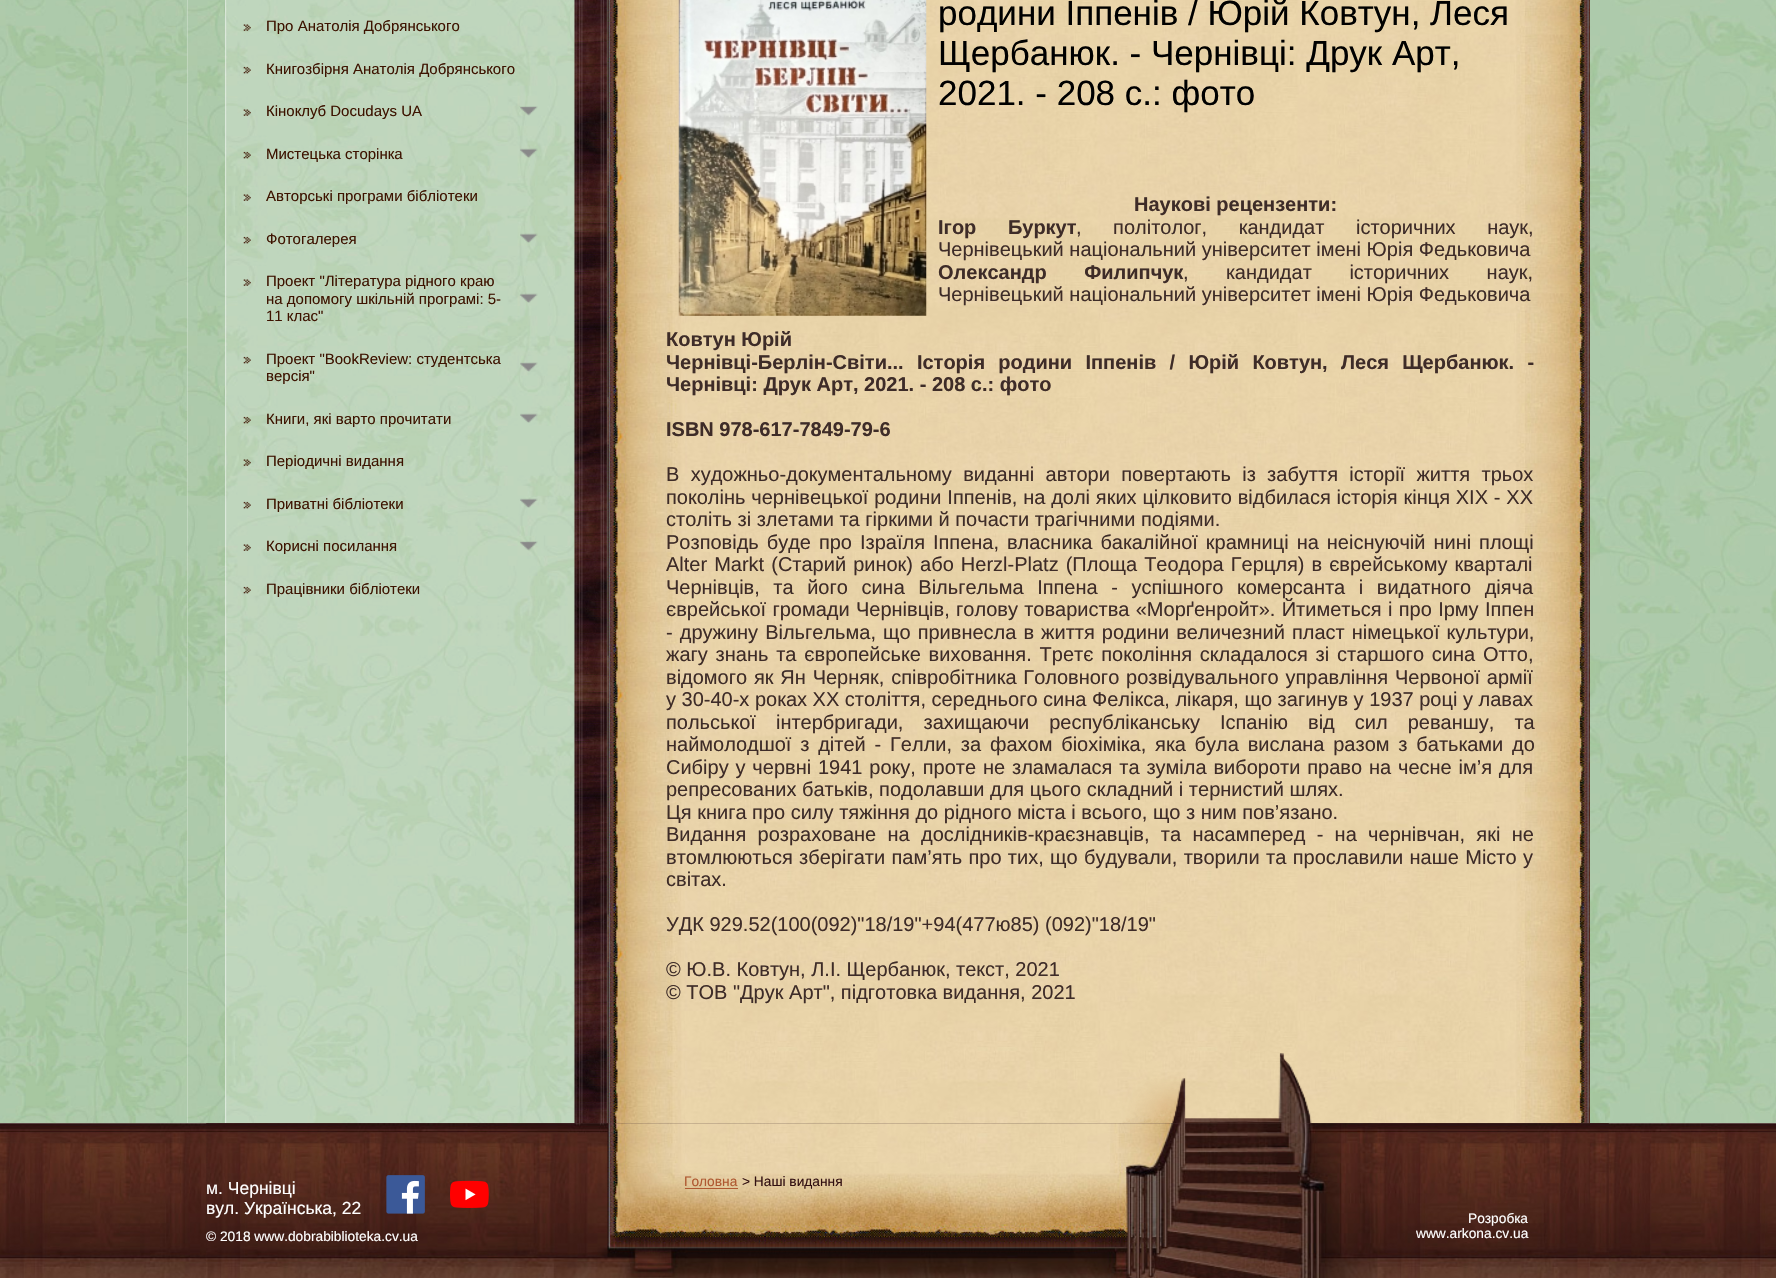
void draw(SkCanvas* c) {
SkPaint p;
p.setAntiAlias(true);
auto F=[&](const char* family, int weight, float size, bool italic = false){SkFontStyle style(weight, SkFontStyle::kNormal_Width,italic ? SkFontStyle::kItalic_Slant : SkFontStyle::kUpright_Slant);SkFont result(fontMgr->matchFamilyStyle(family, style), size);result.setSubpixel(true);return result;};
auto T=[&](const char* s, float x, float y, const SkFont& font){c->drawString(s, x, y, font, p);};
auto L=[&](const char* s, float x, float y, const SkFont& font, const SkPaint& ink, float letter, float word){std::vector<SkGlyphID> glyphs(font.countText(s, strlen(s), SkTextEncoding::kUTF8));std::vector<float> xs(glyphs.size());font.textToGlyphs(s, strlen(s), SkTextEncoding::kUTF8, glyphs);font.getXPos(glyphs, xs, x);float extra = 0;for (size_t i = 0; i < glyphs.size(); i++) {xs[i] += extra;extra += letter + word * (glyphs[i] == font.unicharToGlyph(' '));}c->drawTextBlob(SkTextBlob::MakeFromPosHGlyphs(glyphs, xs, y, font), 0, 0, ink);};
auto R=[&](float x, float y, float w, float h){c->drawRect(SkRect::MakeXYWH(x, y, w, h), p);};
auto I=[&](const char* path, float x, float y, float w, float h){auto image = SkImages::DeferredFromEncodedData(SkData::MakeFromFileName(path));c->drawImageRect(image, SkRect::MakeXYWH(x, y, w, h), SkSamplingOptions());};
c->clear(0xffffffff);
I("1.png",0,0,188,1124);
I("2.png",187,0,1403,1124);
I("3.png",225,0,383,1124);
I("4.png",243,24,8,7);
auto f1 = F("Liberation Sans",400,15);
p.setColor(0xff3d1300);
T("Про Анатолія Добрянського",266,31,f1);
I("5.png",243,66,8,8);
T("Книгозбірня Анатолія Добрянського",266,74,f1);
I("6.png",243,109,8,7);
T("Кіноклуб Docudays UA",266,116,f1);
I("7.png",520,106,18,10);
I("8.png",243,151,8,8);
T("Мистецька сторінка",266,159,f1);
I("9.png",520,148,18,10);
I("10.png",243,194,8,7);
T("Авторські програми бібліотеки",266,201,f1);
I("11.png",243,236,8,8);
T("Фотогалерея",266,244,f1);
I("12.png",520,233,18,10);
I("13.png",243,279,8,7);
T("Проект \"Література рідного краю",266,286,f1);
T("на допомогу шкільній програмі: 5-",266,304,f1);
I("14.png",520,293,18,10);
T("11 клас\"",266,321,f1);
I("15.png",243,356,8,8);
T("Проект \"BookReview: студентська",266,364,f1);
I("16.png",520,362,18,10);
T("версія\"",266,381,f1);
I("17.png",243,416,8,8);
T("Книги, які варто прочитати",266,424,f1);
I("18.png",520,413,18,10);
I("19.png",243,459,8,7);
T("Періодичні видання",266,466,f1);
I("20.png",243,501,8,8);
T("Приватні бібліотеки",266,509,f1);
I("21.png",520,498,18,10);
I("22.png",243,544,8,7);
T("Корисні посилання",266,551,f1);
I("23.png",520,541,18,10);
I("24.png",243,586,8,8);
T("Працівники бібліотеки",266,594,f1);
I("25.png",607,0,983,1124);
I("26.png",678,0,249,316);
auto f2 = F("Liberation Sans",400,35);
p.setColor(0xff000000);
T("родини Іппенів / Юрій Ковтун, Леся",938,25,f2);
T("Щербанюк. - Чернівці: Друк Арт,",938,65,f2);
T("2021. - 208 с.: фото",938,105,f2);
auto f3 = F("Liberation Sans",700,20);
p.setColor(0xff3e2c28);
T("Наукові рецензенти:",1134,211,f3);
L("Ігор Буркут",938,234,f3,p,0,26);
auto f4 = F("Liberation Sans",400,20);
L(", політолог, кандидат історичних наук,",1076,234,f4,p,0,26);
T("Чернівецький національний університет імені Юрія Федьковича",938,256,f4);
L("Олександр Филипчук",938,279,f3,p,0,32);
L(", кандидат історичних наук,",1183,279,f4,p,0,32);
T("Чернівецький національний університет імені Юрія Федьковича",938,301,f4);
T("Ковтун Юрій",666,346,f3);
L("Чернівці-Берлін-Світи... Історія родини Іппенів / Юрій Ковтун, Леся Щербанюк. -",666,369,f3,p,0,7.75);
T("Чернівці: Друк Арт, 2021. - 208 с.: фото",666,391,f3);
T("ISBN 978-617-7849-79-6",666,436,f3);
L("В художньо-документальному виданні автори повертають із забуття історії життя трьох",666,481,f4,p,0,5.75);
L("поколінь чернівецької родини Іппенів, на долі яких цілковито відбилася історія кінця XIX - XX",666,504,f4,p,0,.25);
T("століть зі злетами та гіркими й почасти трагічними подіями.",666,526,f4);
L("Розповідь буде про Ізраїля Іппена, власника бакалійної крамниці на неіснуючій нині площі",666,549,f4,p,0,2.4);
L("Alter Markt (Старий ринок) або Herzl-Platz (Площа Теодора Герцля) в єврейському кварталі",666,571,f4,p,0,1.5);
L("Чернівців, та його сина Вільгельма Іппена - успішного комерсанта і видатного діяча",666,594,f4,p,0,8);
L("єврейської громади Чернівців, голову товариства «Морґенройт». Йтиметься і про Ірму Іппен",666,616,f4,p,0,.75);
L("- дружину Вільгельма, що привнесла в життя родини величезний пласт німецької культури,",666,639,f4,p,0,1.5);
L("жагу знань та європейське виховання. Третє покоління складалося зі старшого сина Отто,",666,661,f4,p,0,2.25);
L("відомого як Ян Черняк, співробітника Головного розвідувального управління Червоної армії",666,684,f4,p,0,1.25);
T("у 30-40-х роках XX століття, середнього сина Фелікса, лікаря, що загинув у 1937 році у лавах",666,706,f4);
L("польської інтербригади, захищаючи республіканську Іспанію від сил реваншу, та",666,729,f4,p,0,14.5);
L("наймолодшої з дітей - Гелли, за фахом біохіміка, яка була вислана разом з батьками до",666,751,f4,p,0,3.25);
L("Сибіру у червні 1941 року, проте не зламалася та зуміла вибороти право на чесне ім’я для",666,774,f4,p,0,1.3);
T("репресованих батьків, подолавши для цього складний і тернистий шлях.",666,796,f4);
T("Ця книга про силу тяжіння до рідного міста і всього, що з ним пов’язано.",666,819,f4);
L("Видання розраховане на дослідників-краєзнавців, та насамперед - на чернівчан, які не",666,841,f4,p,0,5.75);
L("втомлюються зберігати пам’ять про тих, що будували, творили та прославили наше Місто у",666,864,f4,p,0,.8);
T("світах.",666,886,f4);
T("УДК 929.52(100(092)\"18/19\"+94(477ю85) (092)\"18/19\"",666,931,f4);
T("© Ю.В. Ковтун, Л.І. Щербанюк, текст, 2021",666,976,f4);
T("© ТОВ \"Друк Арт\", підготовка видання, 2021",666,999,f4);
I("27.png",1122,1053,190,71);
I("28.png",1590,0,186,1124);
I("29.png",0,1123,1776,155);
I("30.png",206,1123,1403,155);
auto f5 = F("Liberation Sans",400,17.5);
p.setColor(0xffffffff);
T("м. Чернівці",206,1194,f5);
T("вул. Українська, 22",206,1214,f5);
I("31.png",386,1175,39,39);
I("32.png",450,1180,39,28);
auto f6 = F("Liberation Sans",400,13.75);
T("© 2018 www.dobrabiblioteka.cv.ua",206,1241,f6);
p.setColor(0xffaf5931);
T("Головна",684,1186,f6);
R(685,1188,53,1);
p.setColor(0xff321011);
T("> Наші видання",742,1186,f6);
p.setColor(0xffffffff);
T("Розробка",1468,1223,f6);
T("www.arkona.cv.ua",1416,1238,f6);
}
